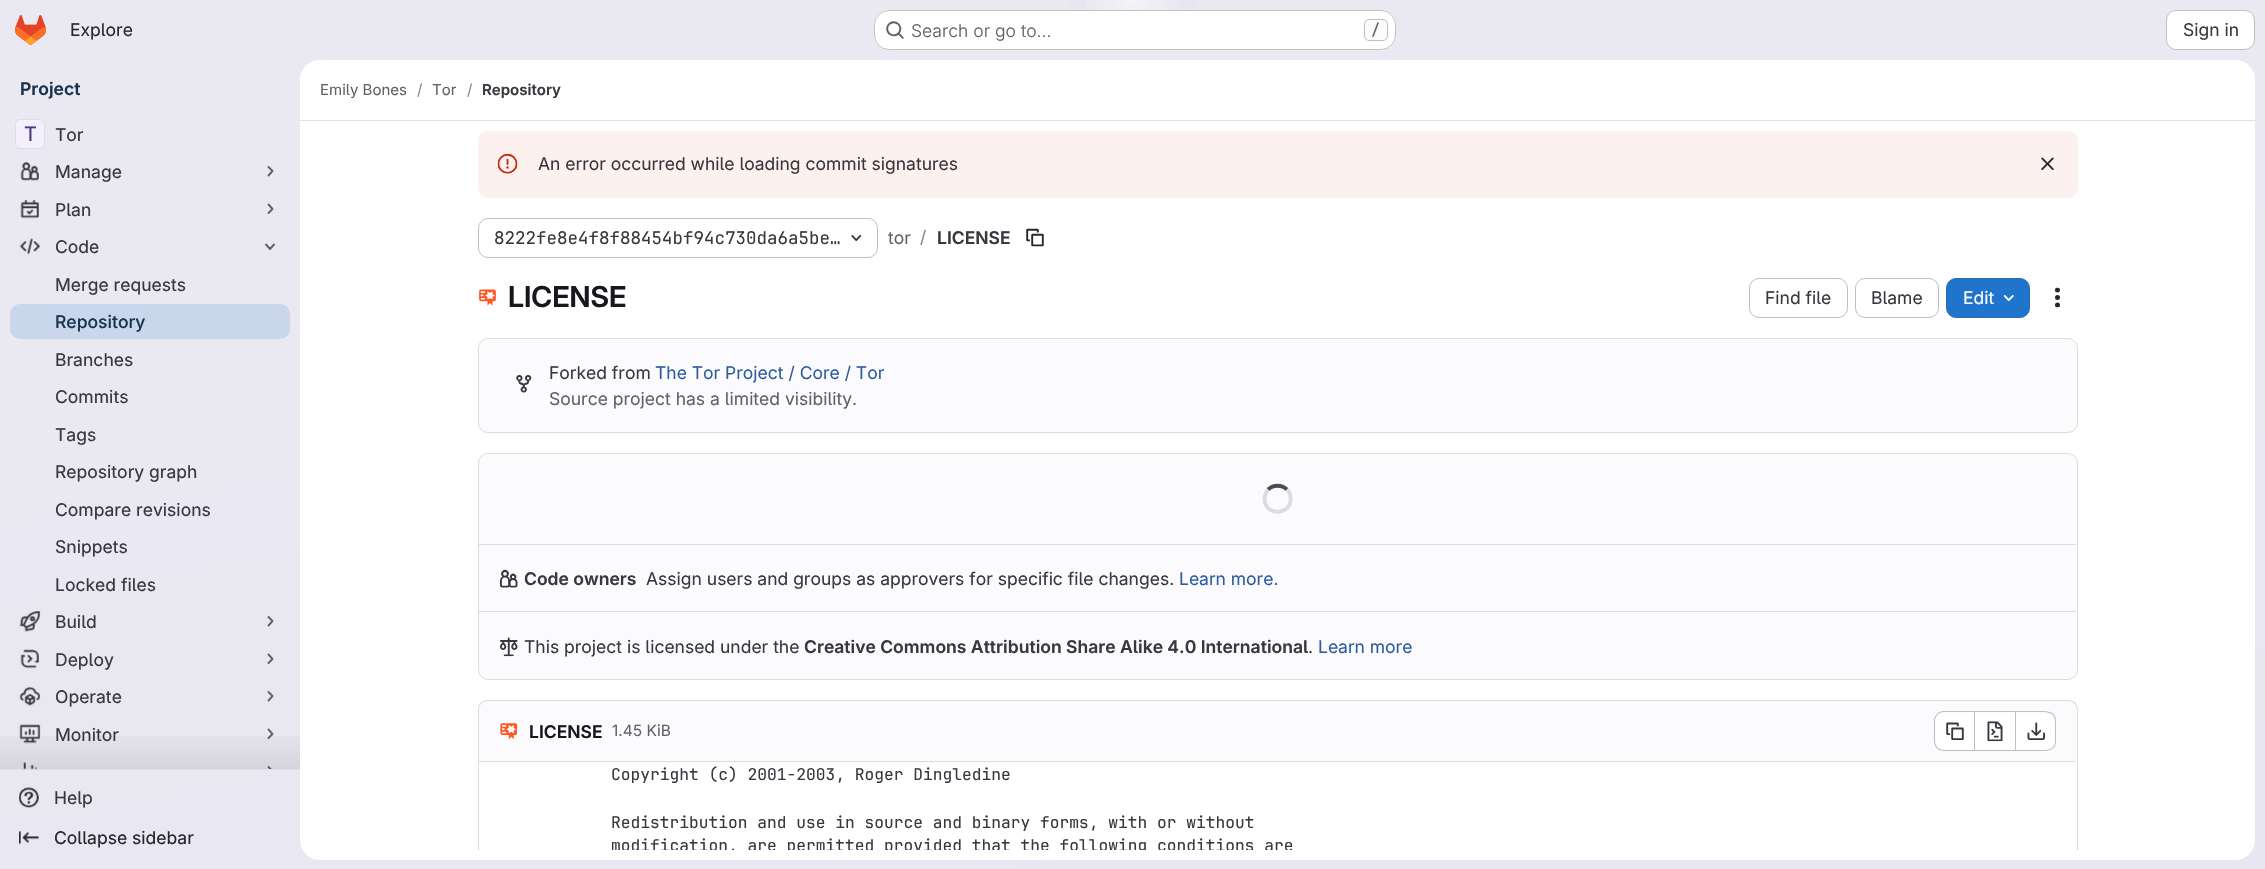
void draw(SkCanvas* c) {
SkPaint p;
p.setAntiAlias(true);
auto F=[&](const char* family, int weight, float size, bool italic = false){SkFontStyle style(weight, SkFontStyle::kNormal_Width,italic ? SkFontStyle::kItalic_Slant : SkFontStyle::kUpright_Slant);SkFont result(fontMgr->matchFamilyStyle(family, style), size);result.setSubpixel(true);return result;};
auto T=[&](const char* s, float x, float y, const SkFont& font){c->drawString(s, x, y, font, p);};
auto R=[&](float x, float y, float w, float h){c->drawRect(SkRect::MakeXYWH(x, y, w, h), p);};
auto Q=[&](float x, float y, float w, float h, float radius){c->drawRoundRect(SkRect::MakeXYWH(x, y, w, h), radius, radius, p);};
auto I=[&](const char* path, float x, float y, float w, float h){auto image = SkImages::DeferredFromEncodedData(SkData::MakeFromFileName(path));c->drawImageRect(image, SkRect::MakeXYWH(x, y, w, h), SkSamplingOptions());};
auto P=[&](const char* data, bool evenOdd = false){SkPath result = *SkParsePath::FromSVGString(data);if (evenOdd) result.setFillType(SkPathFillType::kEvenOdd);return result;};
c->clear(0xffffffff);
{
const SkColor colors[] = {0xffe8e6f0,0xffeae9f2};
const float stops[] = {0,.7};
const SkPoint ends[] = {{1241,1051}, {1024,-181}};
p.setShader(SkGradientShader::MakeLinear(ends, colors, stops, 2, SkTileMode::kClamp));
p.setAlpha(255);
}
R(0,0,2265,869);
{
const SkColor colors[] = {0xffe4e2ed,0x00e4e2ed};
const float stops[] = {0,.08};
SkMatrix m = SkMatrix::Translate(1133,0).preScale(1133,870);
p.setShader(SkGradientShader::MakeRadial({0, 0}, 1, colors, stops, 2, SkTileMode::kClamp, 0, &m));
p.setAlpha(255);
}
R(1068,0,130,50);
{
const SkColor colors[] = {0xffe4e2ec,0x00e4e2ec};
const float stops[] = {0,.06};
SkMatrix m = SkMatrix::Translate(1133,0).preScale(1133,870);
p.setShader(SkGradientShader::MakeRadial({0, 0}, 1, colors, stops, 2, SkTileMode::kClamp, 0, &m));
p.setAlpha(255);
}
R(1107,2,52,8);
{
const SkColor colors[] = {0x99ffffff,0x00ffffff};
const float stops[] = {0,.04};
p.setShader(SkGradientShader::MakeRadial({1133,0}, 1428, colors, stops, 2, SkTileMode::kClamp));
p.setAlpha(255);
}
R(1085,0,96,47);
I("1.png",15,15,31,30);
auto f1 = F("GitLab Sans",400,17.5);
p.setShader(nullptr);
p.setColor(0xff28272d);
T("Explore",70,36,f1);
p.setColor(0xffffffff);
Q(874,10,522,40,15);
p.setStroke(true);
p.setStrokeWidth(1);
p.setColor(0x3d050506);
c->drawRoundRect(SkRect::MakeXYWH(874.5,10.5,521,39),14.5,14.5,p);
I("2.png",886,21,18,18);
auto f2 = F("GitLab Sans",300,17.5);
p.setStroke(false);
p.setColor(0xff626168);
T("Search or go to…",911,37,f2);
p.setColor(0xfffbfafd);
c->drawRoundRect(SkRect::MakeXYWH(1364.5,19.5,23,21),4.5,4.5,p);
p.setStroke(true);
p.setColor(0xffbfbfc3);
c->drawRoundRect(SkRect::MakeXYWH(1364.5,19.5,23,21),4.5,4.5,p);
auto f3 = F("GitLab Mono",500,15);
p.setStroke(false);
p.setColor(0xff626168);
T("/",1371,35,f3);
p.setColor(0xffffffff);
c->drawRoundRect(SkRect::MakeXYWH(2166.5,10.5,88,39),9.5,9.5,p);
p.setStroke(true);
p.setColor(0xffbfbfc3);
c->drawRoundRect(SkRect::MakeXYWH(2166.5,10.5,88,39),9.5,9.5,p);
p.setStroke(false);
p.setColor(0xff3a383f);
T("Sign in",2183,36,f1);
auto f4 = F("GitLab Sans",600,17.5);
p.setColor(0xff18334e);
T("Project",20,95,f4);
p.setColor(0xffe1dfec);
R(0,769,300,1);
p.setColor(0xffffffff);
Q(15,119,30,30,5);
p.setColor(0x3dcbbbf2);
Q(15,119,30,30,5);
p.setStroke(true);
p.setColor(0x14050506);
c->drawRoundRect(SkRect::MakeXYWH(15.5,119.5,29,29),4.5,4.5,p);
auto f5 = F("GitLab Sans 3",400,20);
p.setStroke(false);
p.setColor(0xff493c83);
T("T",24,141,f5);
auto f6 = F("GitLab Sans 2",400,17.5);
p.setColor(0xff3a383f);
T("Tor",55,141,f6);
I("3.png",20,162,19,19);
T("Manage",55,178,f6);
p.setStroke(true);
p.setStrokeWidth(1.9);
p.setStrokeCap(SkPaint::kRound_Cap);
p.setStrokeJoin(SkPaint::kRound_Join);
p.setColor(0xff626168);
c->drawPath(P("M268.5 167l4 4l-4 4.5"),p);
I("4.png",20,199,19,20);
p.setStroke(false);
p.setColor(0xff3a383f);
T("Plan",55,216,f6);
p.setStroke(true);
p.setColor(0xff626168);
c->drawPath(P("M268.5 204.5l4 4.5l-4 4"),p);
I("5.png",19,238,21,17);
p.setStroke(false);
p.setColor(0xff3a383f);
T("Code",55,253,f6);
p.setStroke(true);
p.setColor(0xff626168);
c->drawPath(P("M274 244.5l-4 4.5l-4-4.5"),p);
p.setStroke(false);
p.setColor(0xff3a383f);
T("Merge requests",55,291,f6);
p.setColor(0xffc9d6eb);
Q(10,304,280,35,10);
auto f7 = F("GitLab Sans",500,17.5);
p.setColor(0xff18334e);
T("Repository",55,328,f7);
p.setColor(0xff3a383f);
T("Branches",55,366,f6);
T("Commits",55,403,f6);
T("Tags",55,441,f6);
T("Repository graph",55,478,f6);
T("Compare revisions",55,516,f6);
T("Snippets",55,553,f6);
T("Locked files",55,591,f6);
I("6.png",19,611,22,21);
T("Build",55,628,f6);
p.setStroke(true);
p.setColor(0xff626168);
c->drawPath(P("M268.5 617l4 4l-4 4.5"),p);
I("7.png",20,649,19,20);
p.setStroke(false);
p.setColor(0xff3a383f);
T("Deploy",55,666,f6);
p.setStroke(true);
p.setColor(0xff626168);
c->drawPath(P("M268.5 654.5l4 4.5l-4 4"),p);
I("8.png",19,687,22,19);
p.setStroke(false);
p.setColor(0xff3a383f);
T("Operate",55,703,f6);
p.setStroke(true);
p.setColor(0xff626168);
c->drawPath(P("M268.5 692l4 4l-4 4.5"),p);
I("9.png",19,724,22,20);
p.setStroke(false);
p.setColor(0xff3a383f);
T("Monitor",55,741,f6);
p.setStroke(true);
p.setColor(0xff626168);
c->drawPath(P("M268.5 729.5l4 4.5l-4 4"),p);
I("10.png",23,762,15,8);
c->save();
c->clipRect(SkRect::MakeXYWH(260,761,20,8));
c->drawPath(P("M268.5 767l4 4l-4 4.5"),p);
c->restore();
p.setStroke(false);
{
const SkColor colors[] = {0x00050506,0x14050506};
const float stops[] = {0,1};
const SkPoint ends[] = {{150,724}, {150,769}};
p.setShader(SkGradientShader::MakeLinear(ends, colors, stops, 2, SkTileMode::kClamp));
p.setAlpha(255);
}
R(0,736,300,33);
I("11.png",19,787,20,21);
p.setShader(nullptr);
p.setColor(0xff3a383f);
T("Help",54,804,f6);
I("12.png",19,831,20,14);
p.setColor(0xff28272d);
T("Collapse sidebar",54,844,f6);
p.setColor(0xffffffff);
Q(300,60,1955,800,20);
c->drawPath(P("M320 60h1915c11 0 20 9 20 20v41h-1955v-41c0-11 9-20 20-20z"),p);
p.setColor(0xffe1dfec);
R(300,120,1955,1);
auto f8 = F("GitLab Sans",400,15);
p.setColor(0xff626168);
T("Emily Bones",320,95,f8);
p.setColor(0xff89888d);
T("/",417,95,f8);
p.setColor(0xff626168);
T("Tor",432,95,f8);
p.setColor(0xff89888d);
T("/",467,95,f8);
auto f9 = F("GitLab Sans",600,15);
p.setColor(0xff3a383f);
T("Repository",482,95,f9);
p.setColor(0xfffcf1ef);
Q(478,131,1600,67,10);
I("13.png",497,153,21,21);
p.setColor(0xff3a383f);
T("An error occurred while loading commit signatures",538,170,f1);
I("14.png",2041,157,13,13);
p.setStroke(true);
p.setStrokeWidth(1);
p.setStrokeCap(SkPaint::kButt_Cap);
p.setStrokeJoin(SkPaint::kMiter_Join);
p.setColor(0xffbfbfc3);
c->drawRoundRect(SkRect::MakeXYWH(478.5,218.5,399,39),9.5,9.5,p);
auto f10 = F("GitLab Mono",400,17.5);
p.setStroke(false);
p.setColor(0xff3a383f);
T("8222fe8e4f8f88454bf94c730da6a5be…",494,244,f10);
I("15.png",851,235,11,6);
p.setColor(0xff626168);
T("tor",888,244,f1);
p.setColor(0xff89888d);
T("/",920,243,f1);
p.setColor(0xff3a383f);
T("LICENSE",937,244,f4);
I("16.png",1026,228,18,19);
I("17.png",479,289,17,17);
auto f11 = F("GitLab Sans 2",600,28.75);
p.setColor(0xff18171d);
T("LICENSE",508,307,f11);
p.setStroke(true);
p.setColor(0xffbfbfc3);
c->drawRoundRect(SkRect::MakeXYWH(1749.5,278.5,98,39),9.5,9.5,p);
p.setStroke(false);
p.setColor(0xff3a383f);
T("Find file",1765,304,f1);
p.setStroke(true);
p.setColor(0xffbfbfc3);
c->drawRoundRect(SkRect::MakeXYWH(1855.5,278.5,83,39),9.5,9.5,p);
p.setStroke(false);
p.setColor(0xff3a383f);
T("Blame",1871,304,f1);
p.setColor(0xff1f75cb);
c->drawRoundRect(SkRect::MakeXYWH(1946.5,278.5,83,39),9.5,9.5,p);
p.setStroke(true);
p.setColor(0xff2f68b4);
c->drawRoundRect(SkRect::MakeXYWH(1946.5,278.5,83,39),9.5,9.5,p);
p.setStroke(false);
p.setColor(0xffffffff);
T("Edit",1963,304,f1);
I("18.png",2003,295,11,6);
I("19.png",2055,287,5,21);
p.setColor(0xfffbfafd);
c->drawRoundRect(SkRect::MakeXYWH(478.5,338.5,1599,94),9.5,9.5,p);
p.setStroke(true);
p.setColor(0xffdcdcde);
c->drawRoundRect(SkRect::MakeXYWH(478.5,338.5,1599,94),9.5,9.5,p);
I("20.png",516,375,16,18);
p.setStroke(false);
p.setColor(0xff3a383f);
T("Forked from",549,379,f1);
p.setColor(0xff2f5ca0);
T("The Tor Project / Core / Tor",655,379,f1);
p.setColor(0xff626168);
T("Source project has a limited visibility.",549,405,f1);
p.setColor(0xfffbfafd);
c->drawRoundRect(SkRect::MakeXYWH(478.5,453.5,1599,226),9.5,9.5,p);
p.setStroke(true);
p.setColor(0xffdcdcde);
c->drawRoundRect(SkRect::MakeXYWH(478.5,453.5,1599,226),9.5,9.5,p);
p.setStrokeWidth(3.8);
p.setColor(0xff4c4b51);
c->drawPath(P("M1268 489.5c5.5-5 13.5-5 19 0"),p);
p.setColor(0xffdcdcde);
c->drawPath(P("M1287 489.5c3 3 4 7.5 3.5 12c-3 15-26 13-26-2.5c0-3.5 1.5-7 3.5-9.5"),p);
p.setStroke(false);
R(479,544,1597,1);
I("21.png",500,569,18,19);
p.setColor(0xff3a383f);
T("Code owners",524,585,f4);
T("Assign users and groups as approvers for specific file changes.",646,585,f1);
p.setColor(0xff2f5ca0);
T("Learn more.",1179,585,f1);
p.setColor(0xffdcdcde);
R(479,611,1597,1);
I("22.png",500,637,18,20);
p.setColor(0xff3a383f);
T("This project is licensed under the",524,653,f1);
T("Creative Commons Attribution Share Alike 4.0 International",804,653,f4);
T(".",1308,653,f1);
p.setColor(0xff2f5ca0);
T("Learn more",1318,653,f1);
c->save();
c->clipRect(SkRect::MakeXYWH(300,121,1955,729));
p.setColor(0xffdcdcde);
c->drawPath(P("M488 700c-6 0-10 4-10 10v150h1v-150c0-5 4-9 9-9h1580c5 0 9 4 9 9v150h1v-150c0-6-4-10-10-10z"),p);
c->restore();
p.setColor(0xfffbfafd);
c->drawPath(P("M488 701h1579c5 0 9 4 9 9v53h-1597v-53c0-5 4-9 9-9z"),p);
p.setColor(0xffdcdcde);
R(479,761,1597,1);
I("23.png",500,723,18,17);
p.setColor(0xff18171d);
T("LICENSE",529,738,f4);
auto f12 = F("GitLab Sans",400,15.5);
p.setColor(0xff626168);
T("1.45 KiB",612,736,f12);
p.setColor(0xffffffff);
c->drawPath(P("M1944 713h30v37h-30c-5 0-9-4-9-9v-19c0-5 4-9 9-9z"),p);
p.setColor(0xffbfbfc3);
c->drawPath(P("M1944 711h30v40h-30c-6 0-10-4-10-10v-20c0-5 4-10 10-10zm0 1h30v38h-30c-5 0-9-4-9-9v-20c0-5 4-9 9-9z",true),p);
I("24.png",1946,722,18,18);
p.setColor(0xffffffff);
R(1975,713,40,37);
p.setColor(0xffbfbfc3);
R(1975,711,40,1);
R(1975,750,40,1);
R(1974,711,1,40);
I("25.png",1987,721,16,21);
p.setColor(0xffffffff);
c->drawPath(P("M2016 713h30c5 0 9 4 9 9v19c0 5-4 9-9 9h-30z"),p);
p.setColor(0xffbfbfc3);
c->drawPath(P("M2016 711h25c17 0 15 6 15 20c0 14 2 20-15 20h-25zm0 1h25c16 0 14 6 14 19c0 14 2 19-14 19h-25z",true),p);
R(2015,711,1,40);
I("26.png",2027,722,18,18);
auto f13 = F("GitLab Mono",400,16.25);
p.setColor(0xff3a383f);
T("Copyright (c) 2001-2003, Roger Dingledine",611,780,f13);
T("Redistribution and use in source and binary forms, with or without",611,828,f13);
c->save();
c->clipRect(SkRect::MakeXYWH(300,121,1955,729));
T("modification, are permitted provided that the following conditions are",611,851,f13);
c->restore();
}
